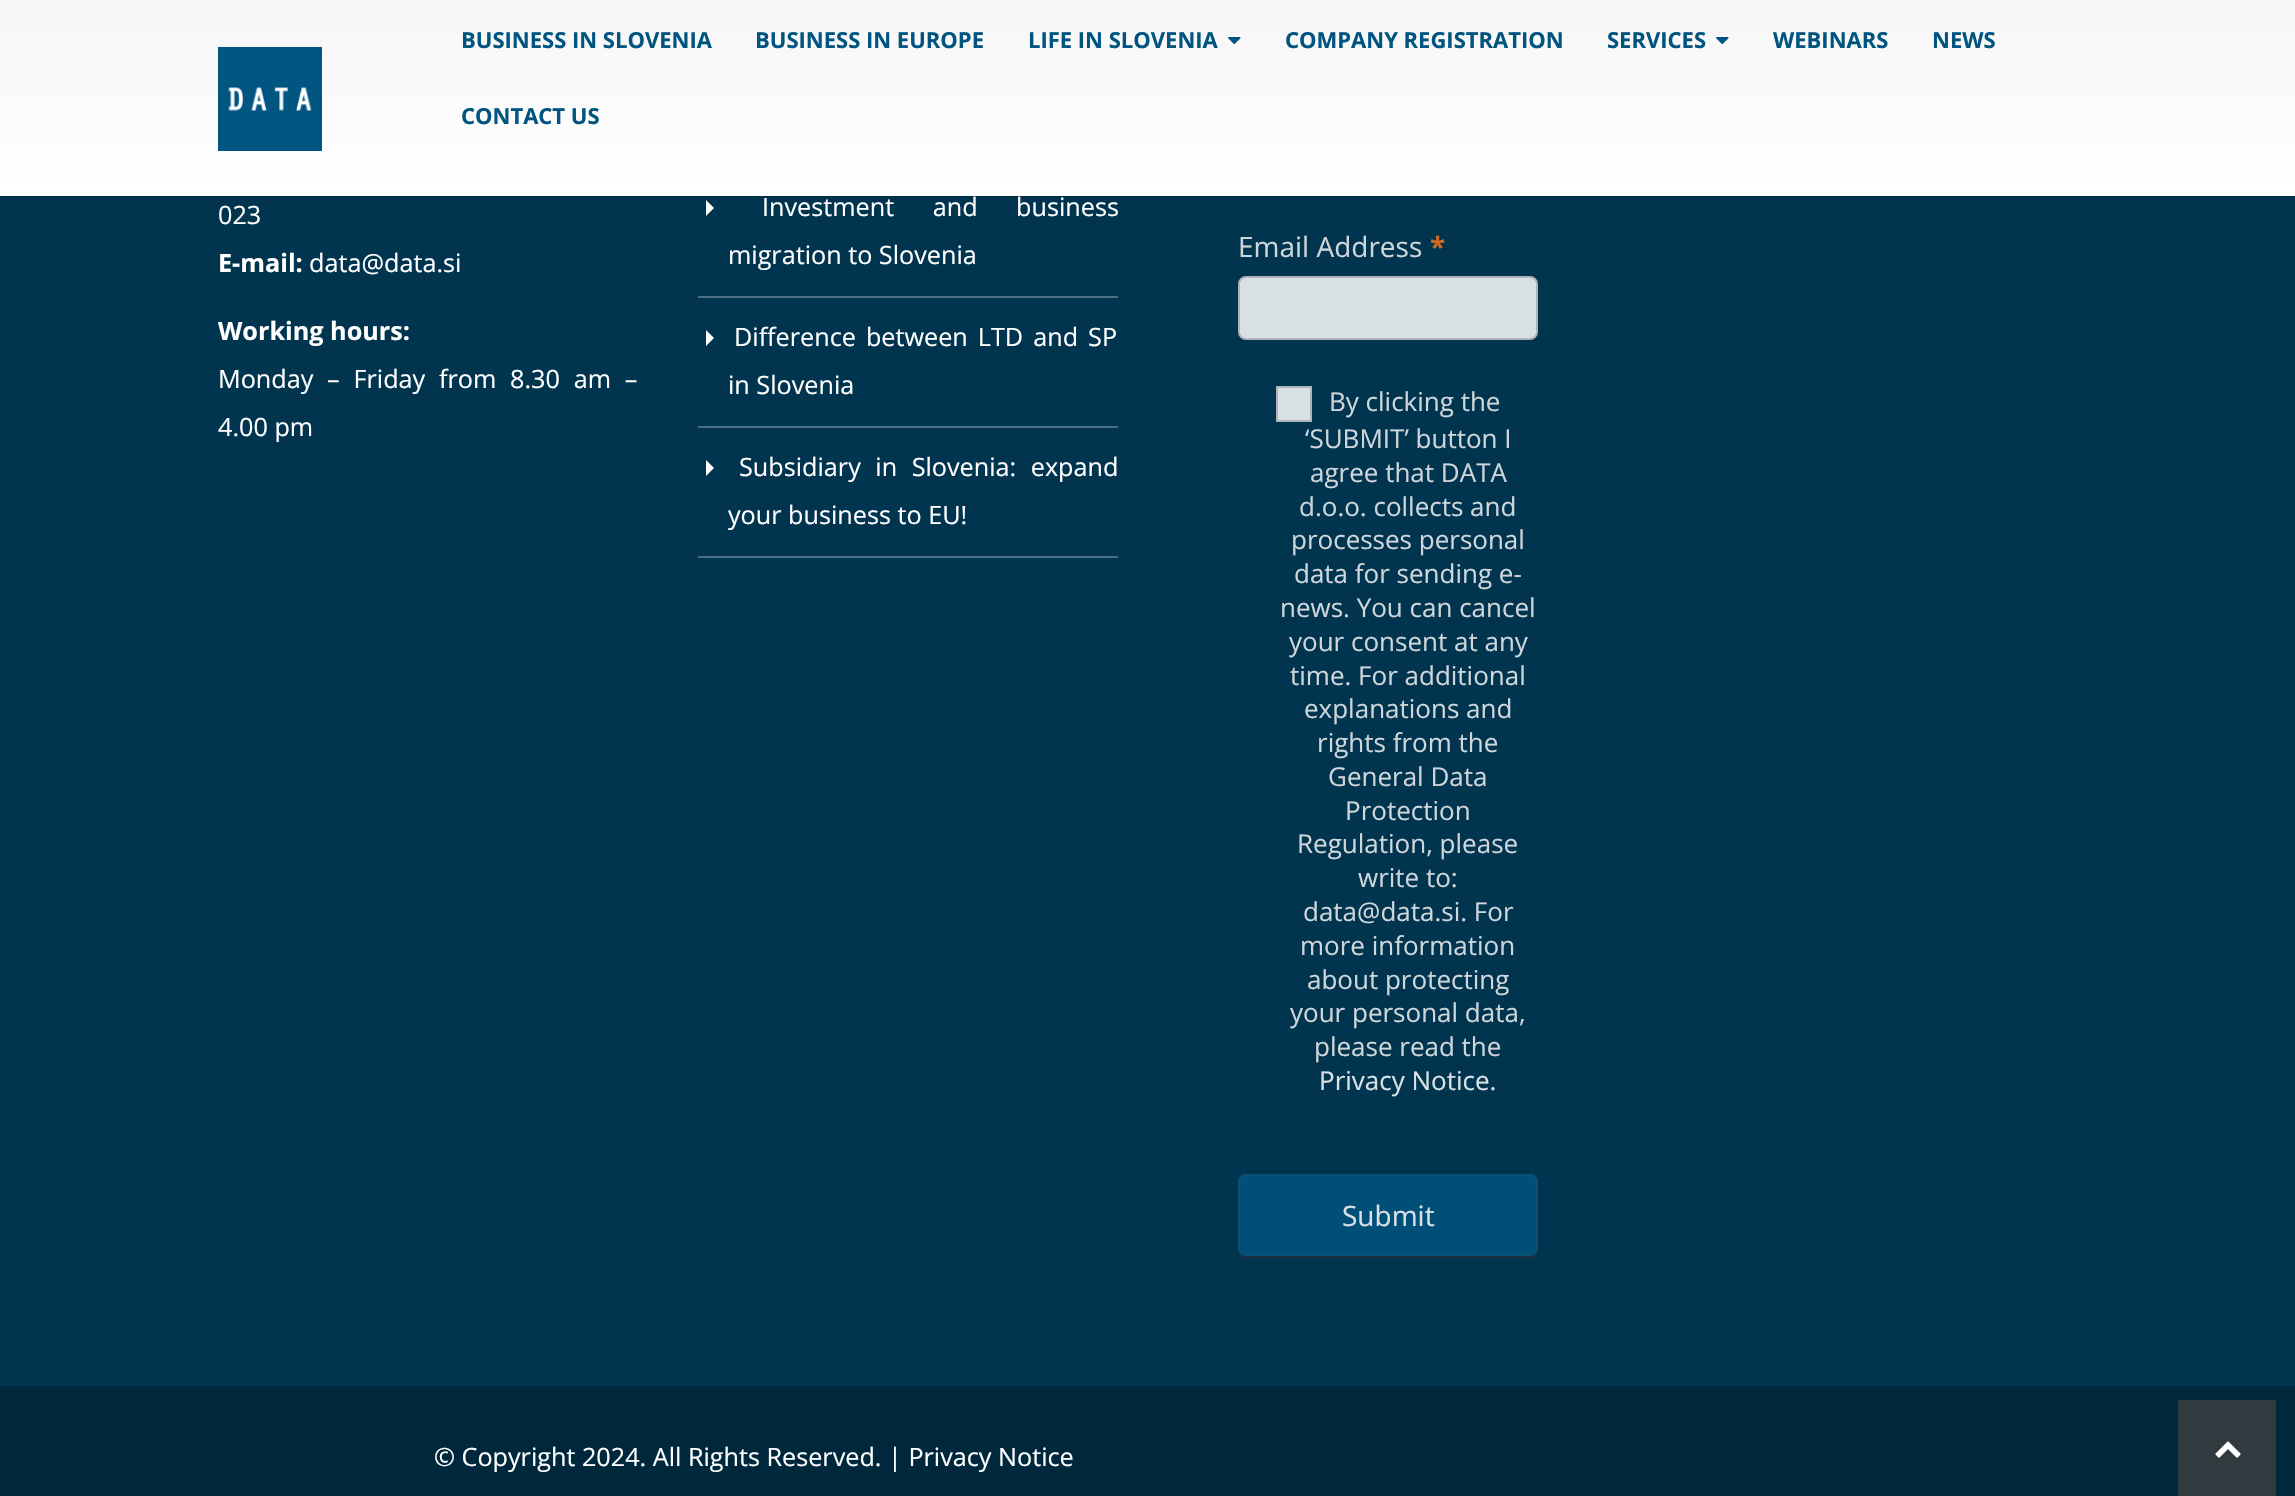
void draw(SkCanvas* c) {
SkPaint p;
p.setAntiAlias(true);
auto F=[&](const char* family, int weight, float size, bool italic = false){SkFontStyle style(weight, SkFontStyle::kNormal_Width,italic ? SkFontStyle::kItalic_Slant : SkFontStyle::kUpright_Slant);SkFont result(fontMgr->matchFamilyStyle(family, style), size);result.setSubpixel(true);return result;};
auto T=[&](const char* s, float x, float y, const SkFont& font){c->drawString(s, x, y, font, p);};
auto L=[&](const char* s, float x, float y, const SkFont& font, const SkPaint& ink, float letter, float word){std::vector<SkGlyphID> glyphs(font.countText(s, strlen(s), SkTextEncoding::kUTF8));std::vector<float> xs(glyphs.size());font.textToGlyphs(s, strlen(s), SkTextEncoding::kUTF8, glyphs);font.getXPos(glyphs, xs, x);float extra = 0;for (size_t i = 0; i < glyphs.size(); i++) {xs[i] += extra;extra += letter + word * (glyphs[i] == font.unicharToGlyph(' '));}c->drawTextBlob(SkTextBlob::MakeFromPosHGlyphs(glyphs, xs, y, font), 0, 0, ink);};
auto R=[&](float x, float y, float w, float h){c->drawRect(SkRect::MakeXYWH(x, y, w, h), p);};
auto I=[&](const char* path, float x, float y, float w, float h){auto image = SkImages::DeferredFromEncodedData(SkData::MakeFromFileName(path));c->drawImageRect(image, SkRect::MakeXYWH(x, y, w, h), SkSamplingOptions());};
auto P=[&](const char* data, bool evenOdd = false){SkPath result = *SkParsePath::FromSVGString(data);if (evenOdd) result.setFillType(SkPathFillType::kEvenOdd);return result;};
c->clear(0xff00283d);
p.setColor(0xff00344f);
R(0,196,2295,1190);
p.setColor(0x1a000000);
R(0,196,2295,2);
{
const SkColor colors[] = {0xfff6f6f6,0xffffffff};
const float stops[] = {0,1};
const SkPoint ends[] = {{1148,0}, {1148,196}};
p.setShader(SkGradientShader::MakeLinear(ends, colors, stops, 2, SkTileMode::kClamp));
p.setAlpha(255);
}
R(0,0,2295,196);
I("1.png",218,47,104,104);
auto f1 = F("Open Sans",700,22);
p.setShader(nullptr);
p.setColor(0xff005480);
T("BUSINESS IN SLOVENIA",461,48,f1);
T("BUSINESS IN EUROPE",755,48,f1);
T("LIFE IN SLOVENIA",1028,48,f1);
I("2.png",1228,37,13,7);
T("COMPANY REGISTRATION",1285,48,f1);
T("SERVICES",1607,48,f1);
I("2.png",1716,37,13,7);
T("WEBINARS",1773,48,f1);
T("NEWS",1932,48,f1);
T("CONTACT US",461,124,f1);
auto f2 = F("Open Sans",400,25.2);
p.setColor(0xffffffff);
T("023",218,224,f2);
auto f3 = F("Open Sans",700,25.2);
T("E-mail:",218,272,f3);
T("data@data.si",309,272,f2);
T("Working hours:",218,340,f3);
L("Monday – Friday from 8.30 am –",218,388,f2,p,0,7.25);
T("4.00 pm",218,436,f2);
p.setColor(0xff4d7184);
R(698,556,420,2);
p.setColor(0xffffffff);
c->drawPath(P("M706 216v-16l8 8z"),p);
L("Investment and business",762,216,f2,p,0,32);
T("migration to Slovenia",728,264,f2);
p.setColor(0xff4d7184);
R(698,296,420,2);
p.setColor(0xffffffff);
c->drawPath(P("M706 346v-16l8 8z"),p);
L("Difference between LTD and SP",734,346,f2,p,0,3.5);
T("in Slovenia",728,394,f2);
p.setColor(0xff4d7184);
R(698,426,420,2);
p.setColor(0xffffffff);
c->drawPath(P("M706 476v-16l8 8z"),p);
L("Subsidiary in Slovenia: expand",739,476,f2,p,0,8);
T("your business to EU!",728,524,f2);
auto f4 = F("Open Sans",400,28);
p.setColor(0xffced6da);
T("Email Address",1238,257,f4);
auto f5 = F("Open Sans",700,28);
p.setColor(0xffd3691f);
T("*",1430,257,f5);
p.setColor(0xffd9e1e5);
c->drawRoundRect(SkRect::MakeXYWH(1239,277,298,62),7,7,p);
p.setStroke(true);
p.setStrokeWidth(2);
p.setColor(0xffadb5b9);
c->drawRoundRect(SkRect::MakeXYWH(1239,277,298,62),7,7,p);
p.setStroke(false);
p.setColor(0xffd9e1e5);
c->drawRect(SkRect::MakeXYWH(1277,387,34,34),p);
p.setStroke(true);
p.setColor(0xffadb5b9);
c->drawRect(SkRect::MakeXYWH(1277,387,34,34),p);
auto f6 = F("Open Sans",400,26);
p.setStroke(false);
p.setColor(0xffced6da);
T("By clicking the",1329,411,f6);
T("‘SUBMIT’ button I",1305,448,f6);
T("agree that DATA",1310,482,f6);
T("d.o.o. collects and",1299,516,f6);
T("processes personal",1291,549,f6);
T("data for sending e-",1294,583,f6);
T("news. You can cancel",1280,617,f6);
T("your consent at any",1289,651,f6);
T("time. For additional",1290,685,f6);
T("explanations and",1304,718,f6);
T("rights from the",1317,752,f6);
T("General Data",1328,786,f6);
T("Protection",1345,820,f6);
T("Regulation, please",1297,853,f6);
T("write to:",1358,887,f6);
T("data@data.si. For",1303,921,f6);
T("more information",1300,955,f6);
T("about protecting",1307,989,f6);
T("your personal data,",1290,1022,f6);
T("please read the",1314,1056,f6);
p.setColor(0xffd9e1e5);
T("Privacy Notice.",1319,1090,f6);
p.setColor(0xff1d3140);
p.setMaskFilter(SkMaskFilter::MakeBlur(kNormal_SkBlurStyle, 1));
c->drawRoundRect(SkRect::MakeXYWH(1238,1176,300,82),8,8,p);
p.setMaskFilter(nullptr);
p.setColor(0xff004f79);
c->drawRoundRect(SkRect::MakeXYWH(1239,1175,298,80),7,7,p);
p.setStroke(true);
p.setColor(0xff095178);
c->drawRoundRect(SkRect::MakeXYWH(1239,1175,298,80),7,7,p);
p.setStroke(false);
p.setColor(0xffd9e1e5);
T("Submit",1342,1226,f4);
p.setColor(0xffffffff);
T("© Copyright 2024. All Rights Reserved. | Privacy Notice",434,1466,f2);
p.setColor(0xff303a3f);
R(2178,1400,98,96);
I("3.png",2215,1441,26,17);
}
